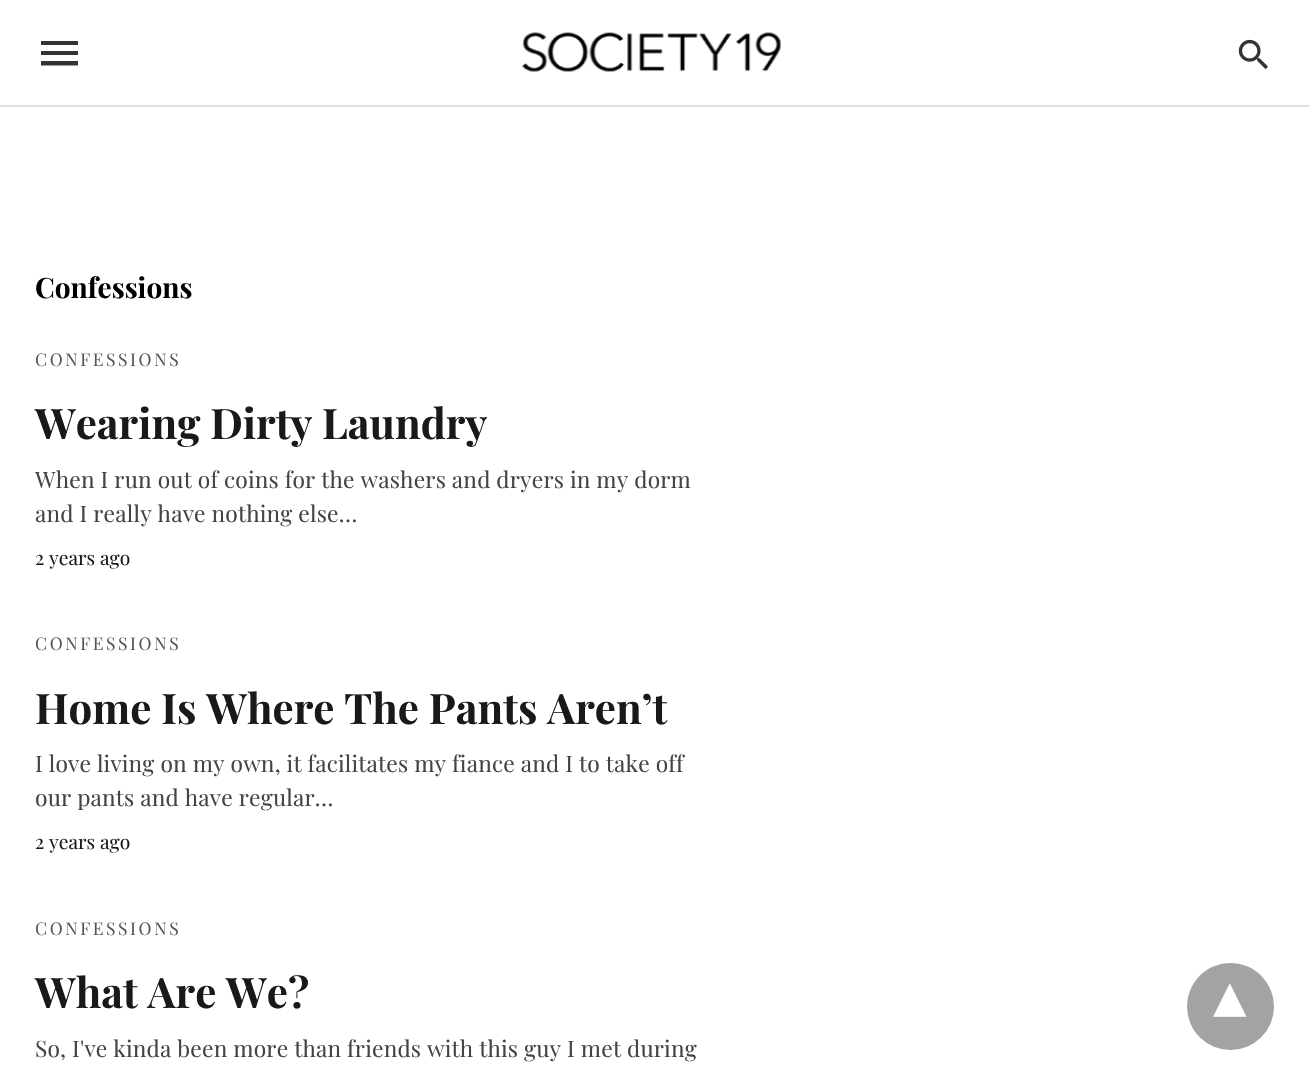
void draw(SkCanvas* c) {
SkPaint p;
p.setAntiAlias(true);
auto F=[&](const char* family, int weight, float size, bool italic = false){SkFontStyle style(weight, SkFontStyle::kNormal_Width,italic ? SkFontStyle::kItalic_Slant : SkFontStyle::kUpright_Slant);SkFont result(fontMgr->matchFamilyStyle(family, style), size);result.setSubpixel(true);return result;};
auto T=[&](const char* s, float x, float y, const SkFont& font){c->drawString(s, x, y, font, p);};
auto L=[&](const char* s, float x, float y, const SkFont& font, const SkPaint& ink, float letter, float word){std::vector<SkGlyphID> glyphs(font.countText(s, strlen(s), SkTextEncoding::kUTF8));std::vector<float> xs(glyphs.size());font.textToGlyphs(s, strlen(s), SkTextEncoding::kUTF8, glyphs);font.getXPos(glyphs, xs, x);float extra = 0;for (size_t i = 0; i < glyphs.size(); i++) {xs[i] += extra;extra += letter + word * (glyphs[i] == font.unicharToGlyph(' '));}c->drawTextBlob(SkTextBlob::MakeFromPosHGlyphs(glyphs, xs, y, font), 0, 0, ink);};
auto R=[&](float x, float y, float w, float h){c->drawRect(SkRect::MakeXYWH(x, y, w, h), p);};
auto I=[&](const char* path, float x, float y, float w, float h){auto image = SkImages::DeferredFromEncodedData(SkData::MakeFromFileName(path));c->drawImageRect(image, SkRect::MakeXYWH(x, y, w, h), SkSamplingOptions());};
auto P=[&](const char* data, bool evenOdd = false){SkPath result = *SkParsePath::FromSVGString(data);if (evenOdd) result.setFillType(SkPathFillType::kEvenOdd);return result;};
c->clear(0xffffffff);
p.setColor(0xffe0e0e0);
R(0,105,1309,2);
p.setColor(0xff333333);
c->drawPath(P("M41 41h37v4h-37zm0 14v-4h37v4zm0 10.5v-4.5h37v4.5z"),p);
I("1.png",522,32,259,40);
I("2.png",1238,39,30,31);
auto f1 = F("Playfair Display",700,28);
p.setColor(0xff000000);
T("Confessions",35,298,f1);
auto f2 = F("Playfair Display",400,17.5);
p.setColor(0xff555555);
L("CONFESSIONS",35,366,f2,p,2.6,0);
auto f3 = F("Playfair Display",700,42);
p.setColor(0xff191919);
T("Wearing Dirty Laundry",35,439,f3);
auto f4 = F("Playfair Display",400,22.75);
p.setColor(0xff444444);
L("When I run out of coins for the washers and dryers in my dorm",35,488,f4,p,.18,0);
L("and I really have nothing else…",35,522,f4,p,.18,0);
auto f5 = F("Playfair Display",400,19.25);
p.setColor(0xff191919);
T("2 years ago",35,565,f5);
p.setColor(0xff555555);
L("CONFESSIONS",35,650,f2,p,2.6,0);
p.setColor(0xff191919);
T("Home Is Where The Pants Aren’t",35,724,f3);
p.setColor(0xff444444);
L("I love living on my own, it facilitates my fiance and I to take off",35,772,f4,p,.18,0);
L("our pants and have regular…",35,806,f4,p,.18,0);
p.setColor(0xff191919);
T("2 years ago",35,849,f5);
p.setColor(0xff555555);
L("CONFESSIONS",35,935,f2,p,2.6,0);
p.setColor(0xff191919);
T("What Are We?",35,1008,f3);
p.setColor(0xff444444);
L("So, I've kinda been more than friends with this guy I met during",35,1057,f4,p,.18,0);
p.setColor(0xffa3a3a3);
c->drawCircle(1230.5,1006.5,43.5,p);
auto f6 = F("DejaVu Sans",700,61);
p.setColor(0xffffffff);
c->save();
c->rotate(180,1246,984);
T("▾",1246,984,f6);
c->restore();
}
